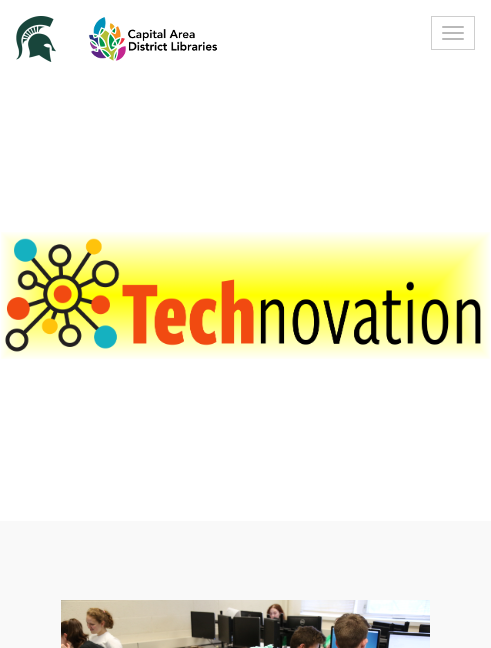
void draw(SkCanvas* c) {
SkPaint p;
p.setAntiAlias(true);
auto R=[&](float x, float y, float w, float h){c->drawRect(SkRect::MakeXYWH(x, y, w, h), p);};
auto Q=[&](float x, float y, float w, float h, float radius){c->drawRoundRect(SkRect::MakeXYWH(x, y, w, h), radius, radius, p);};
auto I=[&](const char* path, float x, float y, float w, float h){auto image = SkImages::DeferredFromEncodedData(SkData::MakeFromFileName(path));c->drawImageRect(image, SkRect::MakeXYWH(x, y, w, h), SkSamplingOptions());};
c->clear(0xffffffff);
I("1.png",16,16,40,46);
I("2.png",88,17,129,44);
p.setStroke(true);
p.setStrokeWidth(1);
p.setColor(0xffcecece);
c->drawRect(SkRect::MakeXYWH(431.5,16.5,43,33),p);
p.setStroke(false);
p.setColor(0xffb9b9b9);
Q(442,26,22,2,1);
Q(442,32,22,2,1);
Q(442,38,22,2,1);
I("3.png",1,232,489,127);
p.setColor(0xfff9f9f9);
R(0,521,491,127);
I("4.png",61,600,369,48);
}
